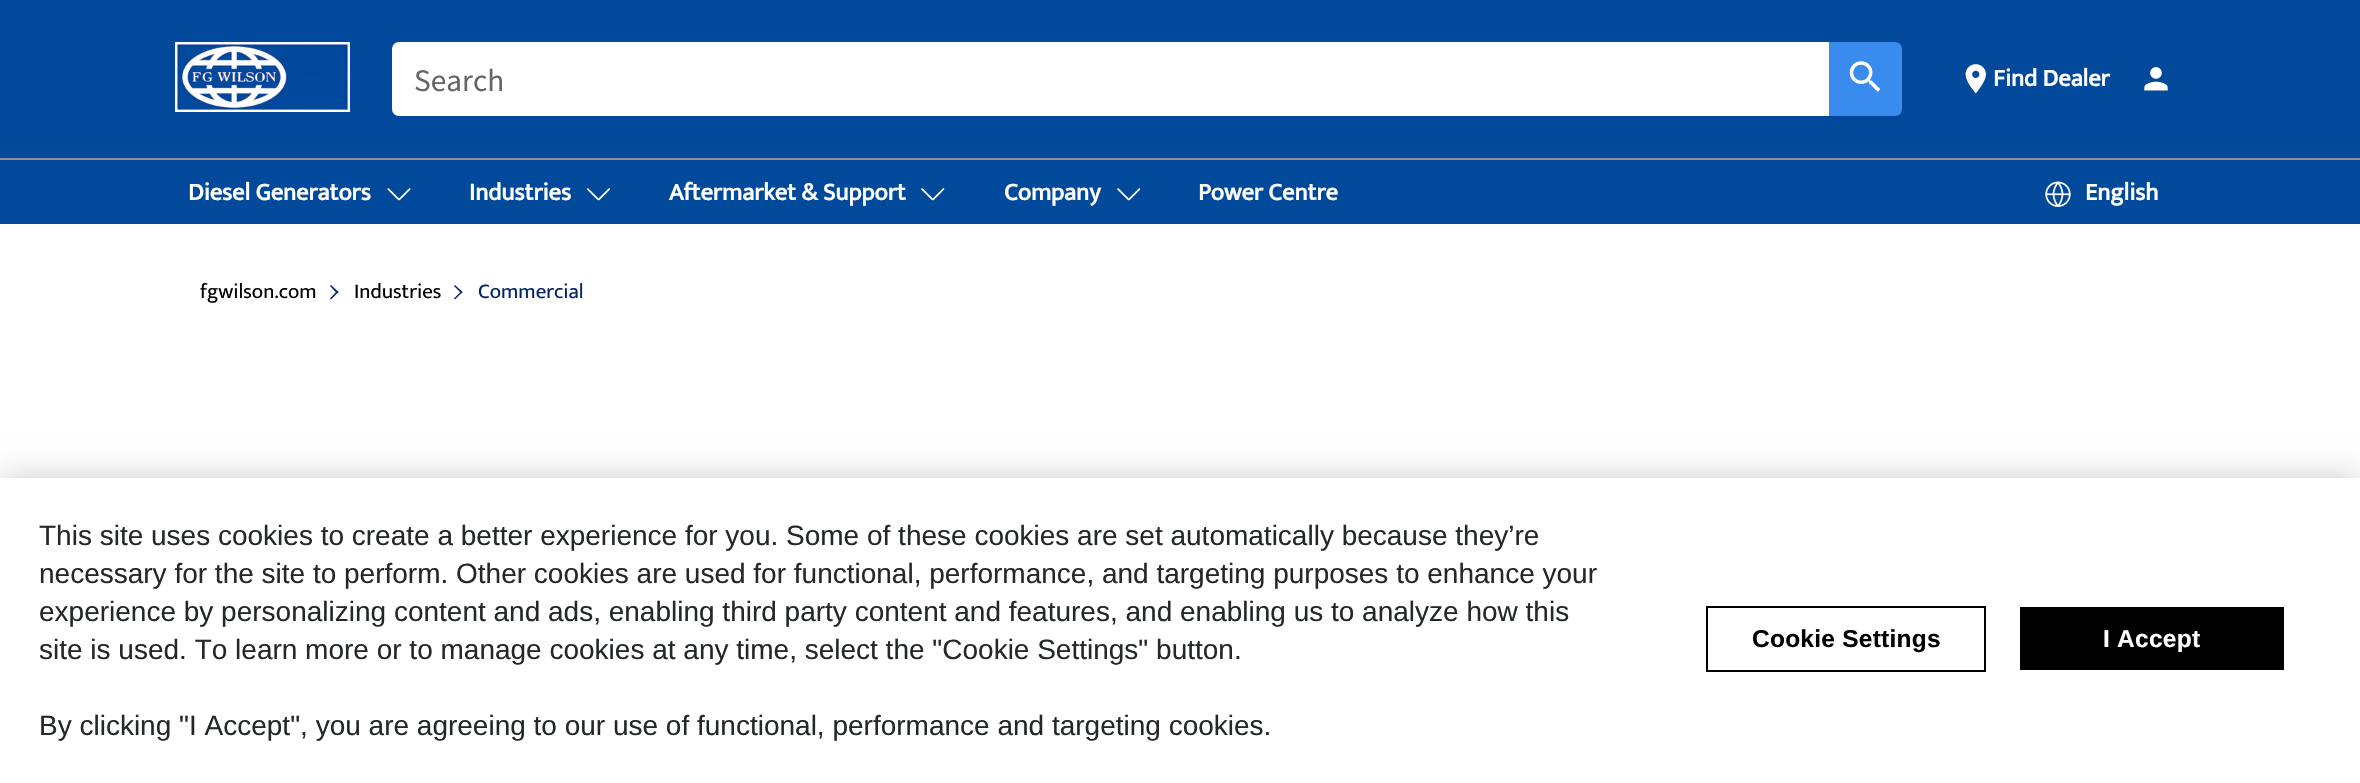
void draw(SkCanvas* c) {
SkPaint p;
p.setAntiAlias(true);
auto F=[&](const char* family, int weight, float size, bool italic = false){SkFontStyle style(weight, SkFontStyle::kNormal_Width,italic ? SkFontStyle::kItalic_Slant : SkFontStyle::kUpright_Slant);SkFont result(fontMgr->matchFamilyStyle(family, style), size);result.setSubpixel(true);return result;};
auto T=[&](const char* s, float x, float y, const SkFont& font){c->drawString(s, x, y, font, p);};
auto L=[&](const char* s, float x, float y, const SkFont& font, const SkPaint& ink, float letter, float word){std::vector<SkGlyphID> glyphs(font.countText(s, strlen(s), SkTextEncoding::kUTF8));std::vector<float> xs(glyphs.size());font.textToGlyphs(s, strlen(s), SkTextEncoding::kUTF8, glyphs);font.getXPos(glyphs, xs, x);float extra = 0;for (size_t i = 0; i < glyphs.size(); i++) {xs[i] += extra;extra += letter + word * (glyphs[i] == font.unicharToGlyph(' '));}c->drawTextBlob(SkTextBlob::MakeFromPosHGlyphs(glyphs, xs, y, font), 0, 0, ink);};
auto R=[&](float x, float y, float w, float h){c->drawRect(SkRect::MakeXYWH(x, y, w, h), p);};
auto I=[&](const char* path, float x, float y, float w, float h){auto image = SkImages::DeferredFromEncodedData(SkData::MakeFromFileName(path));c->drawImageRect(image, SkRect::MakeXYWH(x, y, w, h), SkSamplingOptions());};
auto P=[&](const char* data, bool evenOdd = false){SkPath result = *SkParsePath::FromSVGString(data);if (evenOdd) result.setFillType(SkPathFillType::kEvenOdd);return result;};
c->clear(0xffffffff);
p.setColor(0xff01499b);
R(0,0,2360,224);
I("1.png",175,42,175,70);
p.setColor(0xffffffff);
c->drawPath(P("M399 43h1429v72h-1429c-3.5 0-6-2.5-6-6v-60c0-3.5 2.5-6 6-6z"),p);
p.setStroke(true);
p.setStrokeWidth(2);
c->drawPath(P("M399 43h1429v72h-1429c-3.5 0-6-2.5-6-6v-60c0-3.5 2.5-6 6-6z"),p);
auto f1 = F("Noto Sans JP",400,28);
p.setStroke(false);
p.setColor(0xff666565);
T("Search",414,91,f1);
p.setColor(0xff398ced);
c->drawPath(P("M1830 43h65c3.5 0 6 2.5 6 6v60c0 3.5-2.5 6-6 6h-65z"),p);
p.setStroke(true);
c->drawPath(P("M1830 43h65c3.5 0 6 2.5 6 6v60c0 3.5-2.5 6-6 6h-65z"),p);
I("2.png",1849,61,32,31);
I("3.png",1965,64,21,30);
auto f2 = F("Mukta",700,24.5);
p.setStroke(false);
p.setColor(0xffffffff);
T("Find Dealer",1993,86,f2);
I("4.png",2144,67,24,24);
p.setColor(0xff909090);
R(0,158,2360,2);
p.setColor(0xffffffff);
T("Diesel Generators",188,200,f2);
I("5.png",387,188,24,13);
T("Industries",469,200,f2);
I("6.png",587,188,23,13);
T("Aftermarket & Support",669,200,f2);
I("7.png",921,188,24,13);
T("Company",1004,200,f2);
I("7.png",1117,188,24,13);
T("Power Centre",1198,200,f2);
I("8.png",2045,181,26,26);
T("English",2085,200,f2);
auto f3 = F("Mukta",400,21);
p.setColor(0xff000000);
T("fgwilson.com",200,298,f3);
p.setColor(0xff00246a);
c->drawPath(P("M330 286l1-1l7.5 7l-1.5 1.5z"),p);
c->drawPath(P("M330 298.5l7-7.5l1.5 1l-7.5 7.5z"),p);
p.setColor(0xff000000);
T("Industries",354,298,f3);
p.setColor(0xff00246a);
c->drawPath(P("M454 286l1-1l7.5 7l-1 1.5z"),p);
c->drawPath(P("M454 298.5l7.5-7.5l1 1l-7.5 7.5z"),p);
T("Commercial",478,298,f3);
p.setColor(0x33000000);
p.setMaskFilter(SkMaskFilter::MakeBlur(kNormal_SkBlurStyle, 16));
c->drawRect(SkRect::MakeXYWH(0,478,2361,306),p);
p.setMaskFilter(nullptr);
p.setColor(0xffffffff);
R(0,478,2360,305);
auto f4 = F("Liberation Sans",400,28);
p.setColor(0xff25282b);
T("This site uses cookies to create a better experience for you. Some of these cookies are set automatically because they’re",39,545,f4);
T("necessary for the site to perform. Other cookies are used for functional, performance, and targeting purposes to enhance your",39,583,f4);
T("experience by personalizing content and ads, enabling third party content and features, and enabling us to analyze how this",39,621,f4);
T("site is used. To learn more or to manage cookies at any time, select the \"Cookie Settings\" button.",39,659,f4);
T("By clicking \"I Accept\", you are agreeing to our use of functional, performance and targeting cookies.",39,735,f4);
p.setStroke(true);
p.setColor(0xff000000);
c->drawRect(SkRect::MakeXYWH(1707,607,278,64),p);
auto f5 = F("Liberation Sans",700,24.5);
p.setStroke(false);
L("Cookie Settings",1752,647,f5,p,.25,0);
R(2020,607,264,63);
p.setColor(0xffffffff);
L("I Accept",2103,647,f5,p,.25,0);
}
